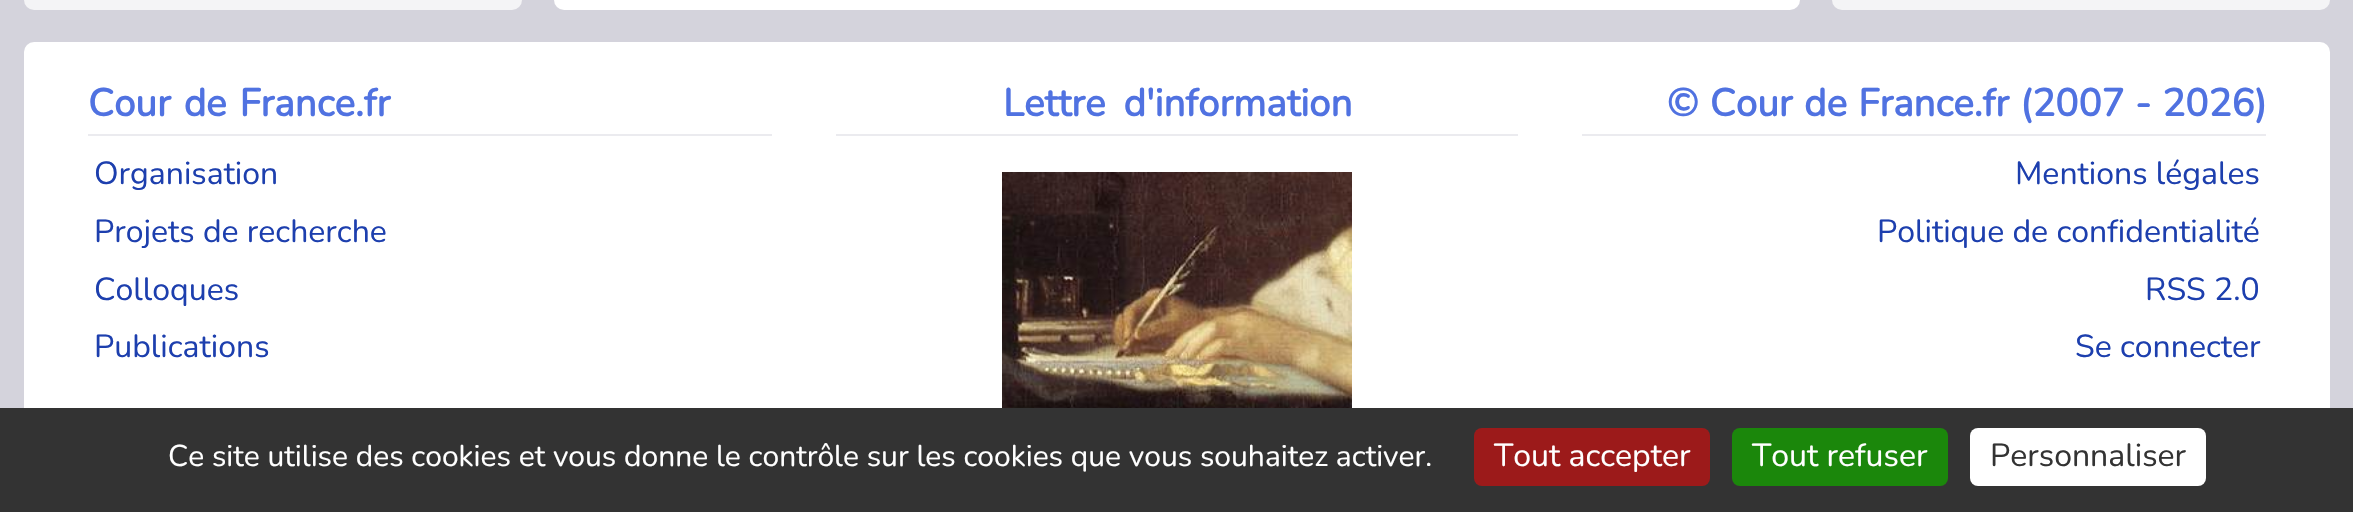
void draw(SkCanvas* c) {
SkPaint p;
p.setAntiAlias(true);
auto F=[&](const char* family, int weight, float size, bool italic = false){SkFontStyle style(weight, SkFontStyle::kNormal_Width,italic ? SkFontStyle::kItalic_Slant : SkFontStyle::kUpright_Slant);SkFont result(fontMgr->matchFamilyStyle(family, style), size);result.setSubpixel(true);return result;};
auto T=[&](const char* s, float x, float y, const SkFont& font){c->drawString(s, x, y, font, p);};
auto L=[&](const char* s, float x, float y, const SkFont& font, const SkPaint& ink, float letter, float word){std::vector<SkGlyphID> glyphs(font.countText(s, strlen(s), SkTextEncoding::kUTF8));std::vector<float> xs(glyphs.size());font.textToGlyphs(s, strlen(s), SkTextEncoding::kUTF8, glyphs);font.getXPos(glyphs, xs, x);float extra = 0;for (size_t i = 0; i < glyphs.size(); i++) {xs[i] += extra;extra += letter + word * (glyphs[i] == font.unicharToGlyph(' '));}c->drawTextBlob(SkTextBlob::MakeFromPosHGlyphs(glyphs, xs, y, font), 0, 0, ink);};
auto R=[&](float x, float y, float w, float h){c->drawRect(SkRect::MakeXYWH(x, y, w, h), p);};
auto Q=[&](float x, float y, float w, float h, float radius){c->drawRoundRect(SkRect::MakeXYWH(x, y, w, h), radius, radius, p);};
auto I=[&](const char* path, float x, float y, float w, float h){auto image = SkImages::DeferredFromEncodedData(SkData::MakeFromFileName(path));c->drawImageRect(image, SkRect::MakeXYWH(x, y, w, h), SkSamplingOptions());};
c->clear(0xffd4d3dc);
p.setColor(0xfff4f4f6);
Q(24,-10,498,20,10);
p.setColor(0xffffffff);
Q(554,-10,1246,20,10);
p.setColor(0xfff4f4f6);
Q(1832,-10,498,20,10);
p.setColor(0xffffffff);
Q(24,42,2306,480,10);
p.setColor(0xffebebef);
R(88,134,684,2);
auto f1 = F("Nunito",700,38.5);
p.setColor(0xff5072e1);
L("Cour de France.fr",88,116,f1,p,0,3);
auto f2 = F("Nunito",400,32);
p.setColor(0xff1d3fae);
T("Organisation",94,184,f2);
T("Projets de recherche",94,242,f2);
T("Colloques",94,300,f2);
T("Publications",94,357,f2);
p.setColor(0xffebebef);
R(836,134,682,2);
p.setColor(0xff5072e1);
L("Lettre d'information",1003,116,f1,p,0,8);
I("1.png",1002,172,350,236);
p.setColor(0xffebebef);
R(1582,134,684,2);
p.setColor(0xff5072e1);
L("© Cour de France.fr",1667,116,f1,p,0,1.5);
T("(2007",2020,116,f1);
L("- 2026)",2135,116,f1,p,0,1);
p.setColor(0xff1d3fae);
T("Mentions légales",2015,184,f2);
T("Politique de confidentialité",1877,242,f2);
T("RSS 2.0",2145,300,f2);
T("Se connecter",2075,357,f2);
p.setColor(0xff333333);
R(0,408,2353,104);
auto f3 = F("Nunito",400,30);
p.setColor(0xffffffff);
T("Ce site utilise des cookies et vous donne le contrôle sur les cookies que vous souhaitez activer.",168,466,f3);
p.setColor(0xff9c1a1a);
Q(1474,428,236,58,8);
p.setColor(0xffffffff);
T("Tout accepter",1494,466,f2);
p.setColor(0xff1b870b);
Q(1732,428,216,58,8);
p.setColor(0xffffffff);
T("Tout refuser",1752,466,f2);
Q(1970,428,236,58,8);
p.setColor(0xff333333);
T("Personnaliser",1990,466,f2);
}
